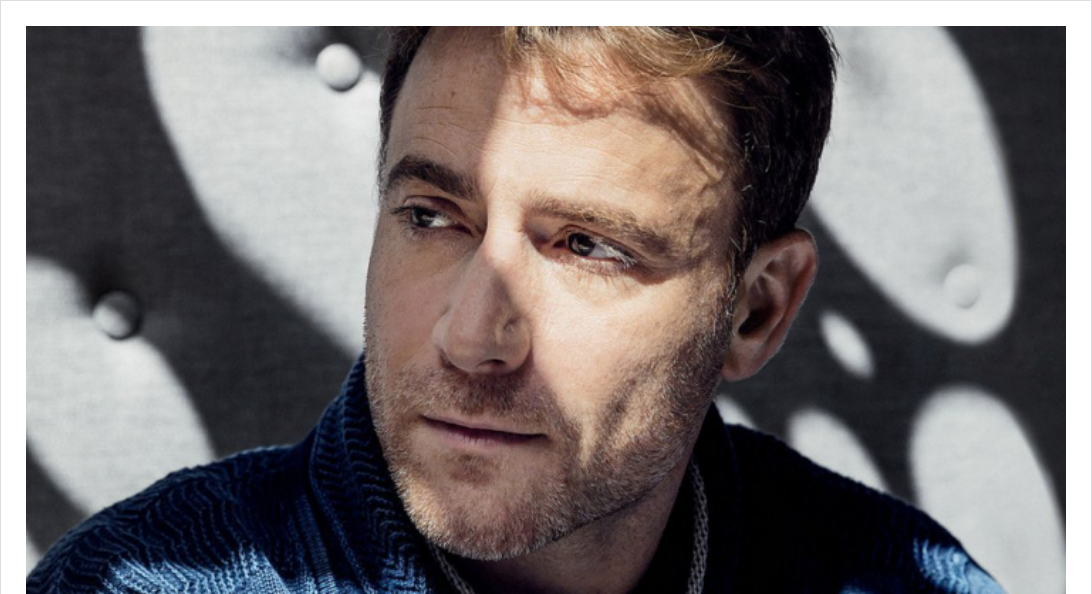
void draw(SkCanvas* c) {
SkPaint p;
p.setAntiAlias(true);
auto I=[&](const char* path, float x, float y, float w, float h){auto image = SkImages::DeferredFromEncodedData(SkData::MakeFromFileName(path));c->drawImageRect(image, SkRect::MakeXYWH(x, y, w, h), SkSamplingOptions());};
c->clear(0xffffffff);
p.setStroke(true);
p.setStrokeWidth(1);
p.setColor(0xffdcdcde);
c->drawRect(SkRect::MakeXYWH(.5,.5,1091,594),p);
I("1.png",26,26,1040,568);
}
